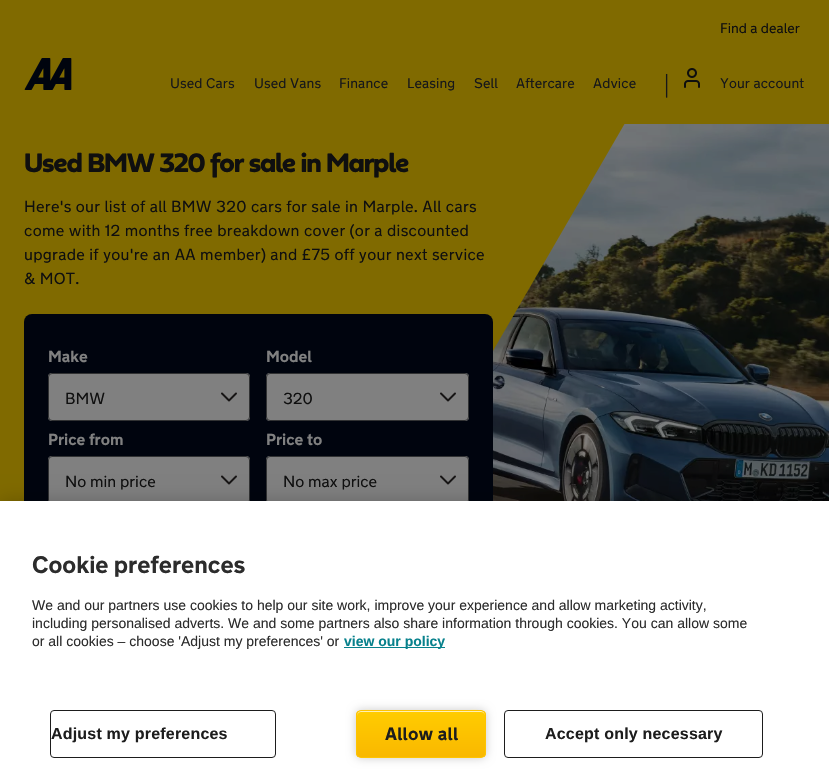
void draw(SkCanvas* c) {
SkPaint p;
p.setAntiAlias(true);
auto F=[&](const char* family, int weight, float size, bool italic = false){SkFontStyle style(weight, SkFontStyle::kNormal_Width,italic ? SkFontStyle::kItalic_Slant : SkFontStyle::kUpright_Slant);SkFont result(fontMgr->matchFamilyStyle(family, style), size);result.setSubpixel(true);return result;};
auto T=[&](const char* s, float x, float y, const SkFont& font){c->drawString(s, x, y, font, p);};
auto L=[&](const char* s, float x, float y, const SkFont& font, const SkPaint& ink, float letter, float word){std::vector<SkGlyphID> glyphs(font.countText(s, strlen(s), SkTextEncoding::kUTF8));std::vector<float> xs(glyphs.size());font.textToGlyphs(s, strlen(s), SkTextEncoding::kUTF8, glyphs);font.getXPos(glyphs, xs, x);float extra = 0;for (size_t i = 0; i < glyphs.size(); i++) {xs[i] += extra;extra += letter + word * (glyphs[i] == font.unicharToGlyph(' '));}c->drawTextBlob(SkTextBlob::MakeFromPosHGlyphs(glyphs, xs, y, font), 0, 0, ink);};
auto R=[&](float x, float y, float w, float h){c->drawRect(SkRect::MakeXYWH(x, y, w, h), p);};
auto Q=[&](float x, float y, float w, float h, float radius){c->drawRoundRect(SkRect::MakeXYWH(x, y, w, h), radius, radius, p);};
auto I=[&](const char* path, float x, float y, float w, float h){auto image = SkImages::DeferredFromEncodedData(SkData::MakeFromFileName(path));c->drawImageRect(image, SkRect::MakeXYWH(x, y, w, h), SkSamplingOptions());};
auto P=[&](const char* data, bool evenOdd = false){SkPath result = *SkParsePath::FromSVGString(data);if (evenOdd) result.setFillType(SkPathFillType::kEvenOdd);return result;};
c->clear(0xff806a00);
auto f1 = F("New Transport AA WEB",400,14);
p.setColor(0xff0f0f0f);
T("Find a dealer",720,33,f1);
I("1.png",24,58,48,32);
p.setColor(0xff161719);
L("Used Cars",170,88,f1,p,.1,0);
L("Used Vans",254,88,f1,p,.1,0);
L("Finance",339,88,f1,p,.1,0);
L("Leasing",407,88,f1,p,.1,0);
L("Sell",474,88,f1,p,.1,0);
L("Aftercare",516,88,f1,p,.1,0);
L("Advice",593,88,f1,p,.1,0);
auto f2 = F("Liberation Serif",400,26);
T("|",664,92,f2);
I("2.png",684,68,16,20);
L("Your account",720,88,f1,p,.1,0);
auto f3 = F("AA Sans",700,28);
p.setColor(0xff0f0f0f);
L("Used BMW 320 for sale in Marple",24,172,f3,p,-1.25,0);
auto f4 = F("New Transport AA WEB",400,16);
L("Here's our list of all BMW 320 cars for sale in Marple. All cars",24,212,f4,p,.3,0);
L("come with 12 months free breakdown cover (or a discounted",24,236,f4,p,.3,0);
L("upgrade if you're an AA member) and £75 off your next service",24,260,f4,p,.3,0);
L("& MOT.",24,284,f4,p,.3,0);
p.setColor(0xff00040e);
Q(24,314,469,366,8);
auto f5 = F("New Transport AA WEB",700,16);
p.setColor(0xff808080);
T("Make",48,362,f5);
Q(48,373,202,48,4);
I("3.png",221,392,16,10);
p.setStroke(true);
p.setStrokeWidth(1);
p.setColor(0xff313233);
c->drawRoundRect(SkRect::MakeXYWH(48.5,373.5,201,47),3.5,3.5,p);
p.setStroke(false);
p.setColor(0xff0f0f0f);
T("BMW",65,404,f4);
p.setColor(0xff808080);
T("Model",266,362,f5);
Q(266,373,203,48,4);
I("3.png",440,392,16,10);
p.setStroke(true);
p.setColor(0xff313233);
c->drawRoundRect(SkRect::MakeXYWH(266.5,373.5,202,47),3.5,3.5,p);
p.setStroke(false);
p.setColor(0xff0f0f0f);
T("320",283,404,f4);
p.setColor(0xff808080);
T("Price from",48,445,f5);
Q(48,456,202,48,4);
I("3.png",221,475,16,10);
p.setStroke(true);
p.setColor(0xff313233);
c->drawRoundRect(SkRect::MakeXYWH(48.5,456.5,201,47),3.5,3.5,p);
p.setStroke(false);
p.setColor(0xff0f0f0f);
T("No min price",65,487,f4);
p.setColor(0xff808080);
T("Price to",266,445,f5);
Q(266,456,203,48,4);
I("3.png",440,475,16,10);
p.setStroke(true);
p.setColor(0xff313233);
c->drawRoundRect(SkRect::MakeXYWH(266.5,456.5,202,47),3.5,3.5,p);
p.setStroke(false);
p.setColor(0xff0f0f0f);
T("No max price",283,487,f4);
I("4.png",493,124,336,377);
p.setColor(0x33000000);
p.setMaskFilter(SkMaskFilter::MakeBlur(kNormal_SkBlurStyle, 9));
c->drawRect(SkRect::MakeXYWH(0,501,829,278),p);
p.setMaskFilter(nullptr);
p.setColor(0xffffffff);
R(0,501,829,278);
auto f6 = F("New Transport AA WEB",700,24);
p.setColor(0xff2c2c2c);
T("Cookie preferences",32,573,f6);
auto f7 = F("Liberation Sans",400,14);
T("We and our partners use cookies to help our site work, improve your experience and allow marketing activity,",32,610,f7);
T("including personalised adverts. We and some partners also share information through cookies. You can allow some",32,628,f7);
T("or all cookies – choose 'Adjust my preferences' or",32,646,f7);
p.setColor(0xff07818c);
R(344,647,101,1);
auto f8 = F("Liberation Sans",700,14);
T("view our policy",344,646,f8);
p.setStroke(true);
p.setColor(0xff1d1d1d);
c->drawRoundRect(SkRect::MakeXYWH(50.5,710.5,225,47),3.5,3.5,p);
auto f9 = F("Liberation Sans",700,16);
p.setStroke(false);
L("Adjust my preferences",51,739,f9,p,.2,0);
p.setColor(0x33000000);
p.setMaskFilter(SkMaskFilter::MakeBlur(kNormal_SkBlurStyle, 5));
c->drawRoundRect(SkRect::MakeXYWH(356,710,130,48),5,5,p);
p.setMaskFilter(nullptr);
c->save();
c->clipPath(P("M361 710h120c3 0 5 2 5 5v38c0 3-2 5-5 5h-120c-3 0-5-2-5-5v-38c0-3 2-5 5-5z"),true);
{
const SkColor colors[] = {0xffffcc00,0xfff9b800};
const float stops[] = {0,1};
const SkPoint ends[] = {{421,711}, {421,757}};
p.setShader(SkGradientShader::MakeLinear(ends, colors, stops, 2, SkTileMode::kClamp));
p.setAlpha(255);
}
R(356,711,130,46);
c->restore();
p.setShader(nullptr);
p.setColor(0xfffff0b3);
c->drawPath(P("M361 712h120c2 0 4 2 4 4c0-10-22-5-24-5h-80c-2 0-24-5-24 5c0-2 2-4 4-4z"),p);
p.setStroke(true);
p.setColor(0xffffc400);
c->drawRoundRect(SkRect::MakeXYWH(356.5,710.5,129,47),4.5,4.5,p);
auto f10 = F("New Transport AA WEB",700,18);
p.setStroke(false);
p.setColor(0xff1d1d1d);
L("Allow all",385,740,f10,p,.25,0);
p.setStroke(true);
c->drawRoundRect(SkRect::MakeXYWH(504.5,710.5,258,47),3.5,3.5,p);
p.setStroke(false);
L("Accept only necessary",545,739,f9,p,.2,0);
}
